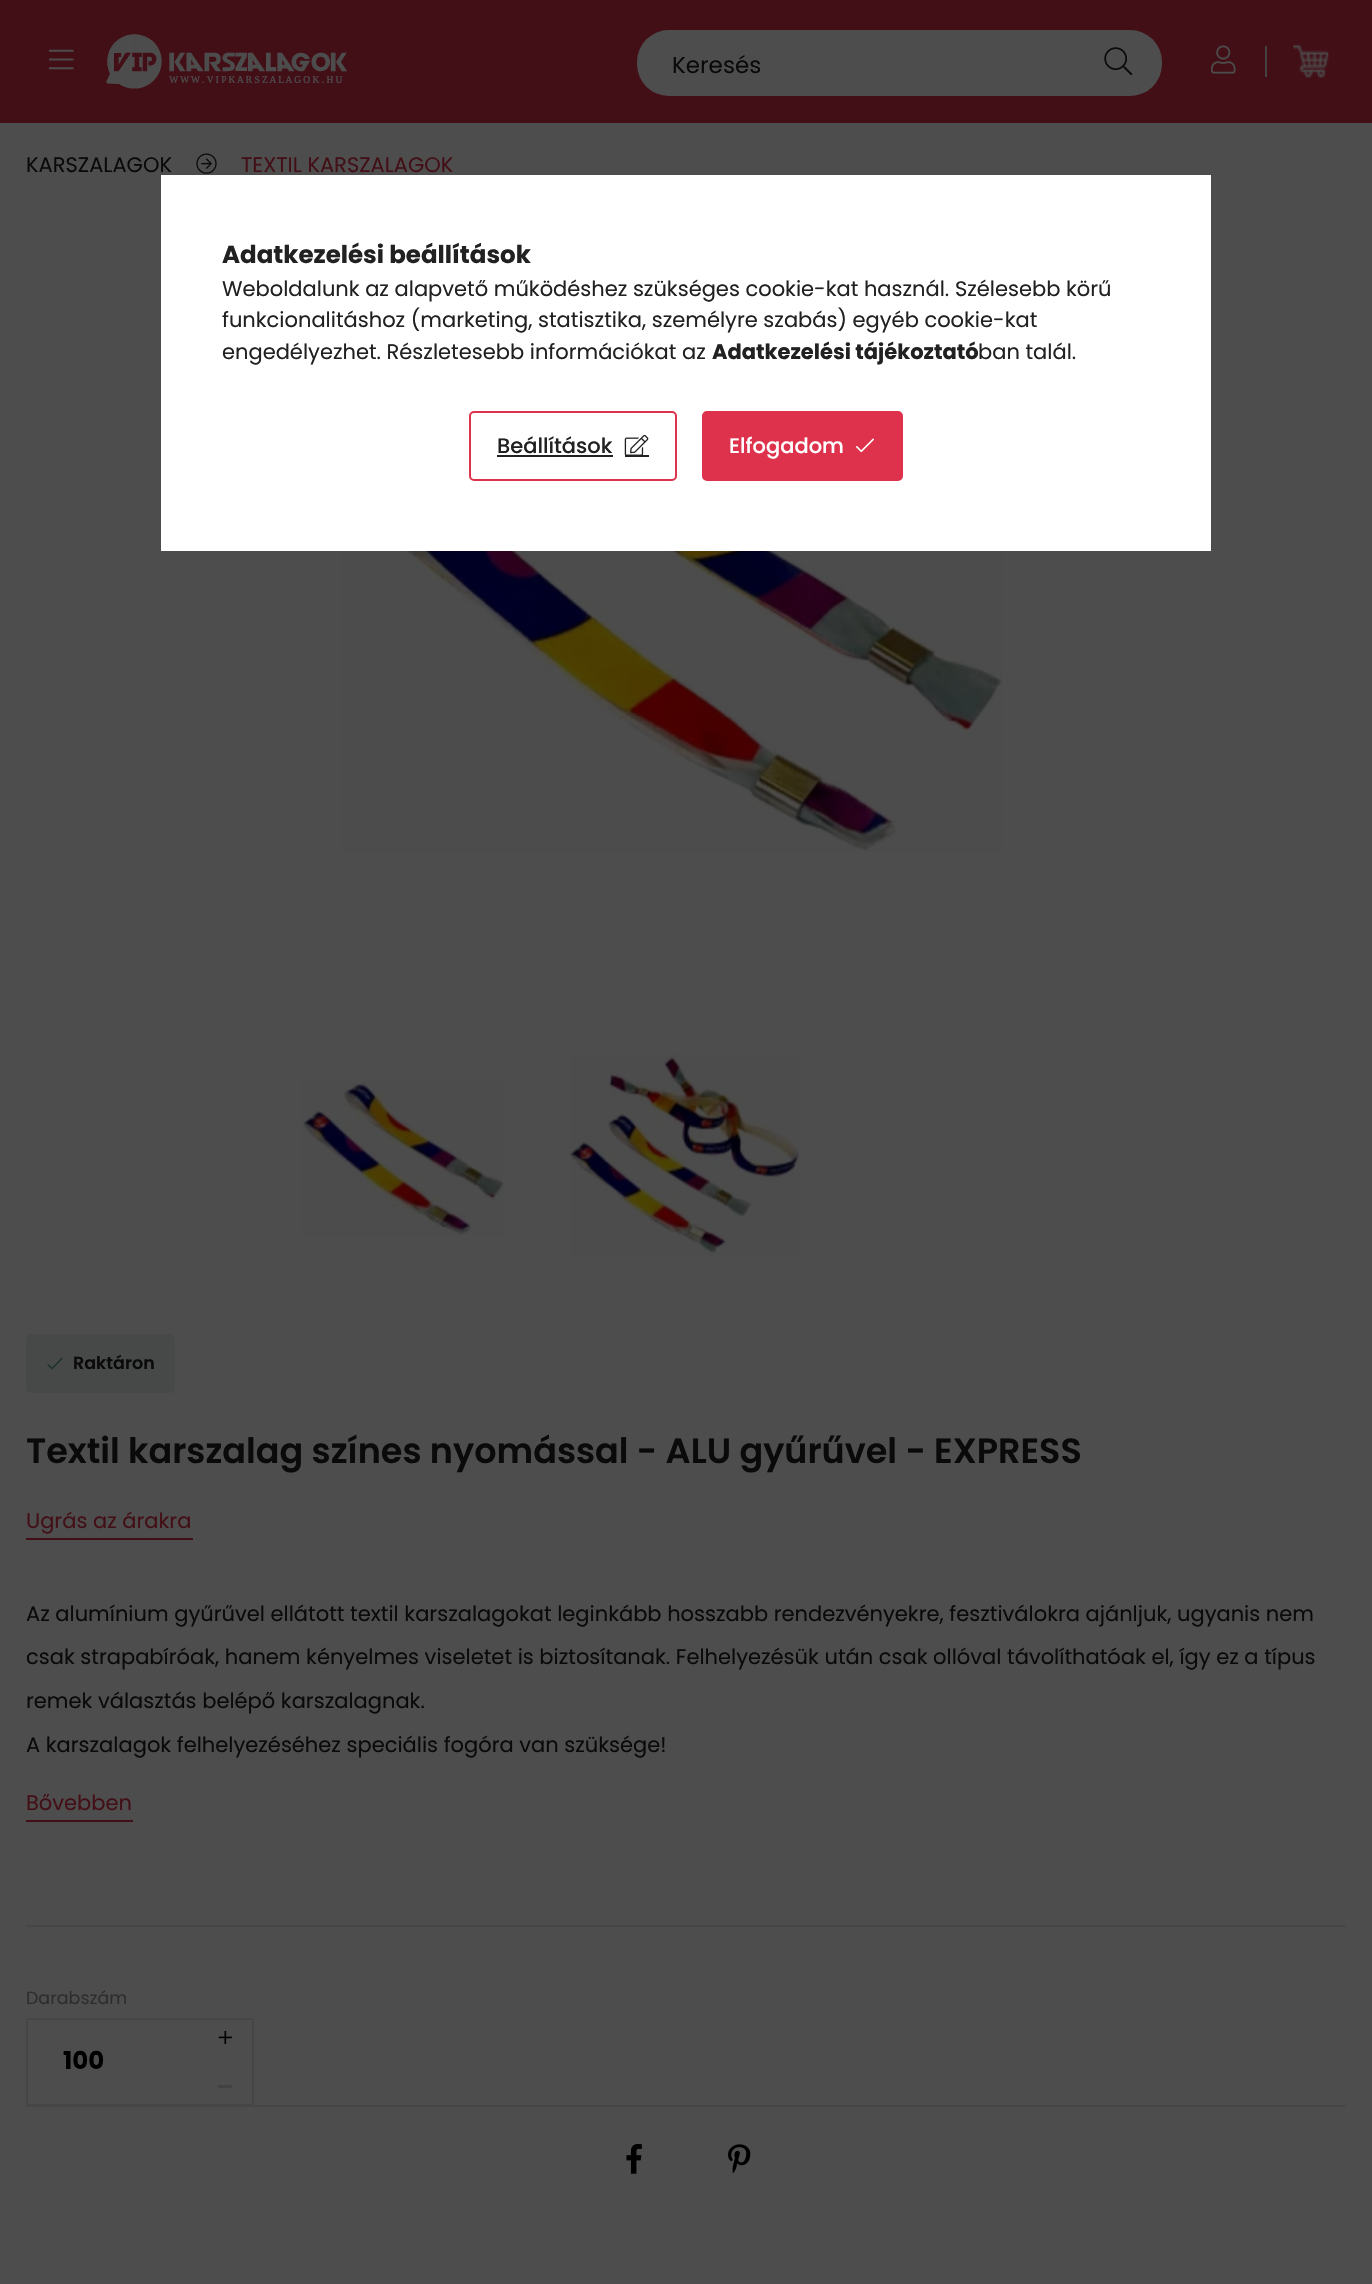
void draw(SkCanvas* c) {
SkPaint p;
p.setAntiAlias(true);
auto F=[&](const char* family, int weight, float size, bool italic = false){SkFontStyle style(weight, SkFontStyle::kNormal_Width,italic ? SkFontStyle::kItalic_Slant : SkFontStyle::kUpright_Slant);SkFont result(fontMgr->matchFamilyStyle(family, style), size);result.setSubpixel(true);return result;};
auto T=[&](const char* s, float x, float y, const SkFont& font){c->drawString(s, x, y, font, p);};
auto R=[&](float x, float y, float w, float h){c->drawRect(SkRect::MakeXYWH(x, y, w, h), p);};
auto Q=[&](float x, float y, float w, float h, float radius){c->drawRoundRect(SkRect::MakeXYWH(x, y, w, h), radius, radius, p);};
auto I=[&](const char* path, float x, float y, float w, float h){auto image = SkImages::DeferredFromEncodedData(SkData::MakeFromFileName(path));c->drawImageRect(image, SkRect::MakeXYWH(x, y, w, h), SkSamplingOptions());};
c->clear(0xff4d4d4d);
p.setColor(0xff430f17);
R(0,0,1372,123);
I("1.png",49,49,25,21);
I("2.png",106,34,241,55);
p.setColor(0xff4d4d4d);
Q(637,30,525,66,32);
auto f1 = F("Poppins",400,23);
p.setColor(0xff0a0a0a);
T("Keresés",672,73,f1);
I("3.png",1104,47,29,29);
I("4.png",1211,45,25,29);
p.setColor(0xff424242);
R(1265,46,2,31);
I("5.png",1293,44,36,35);
auto f2 = F("Poppins",400,21);
p.setColor(0xff0a0a0a);
T("KARSZALAGOK",26,172,f2);
I("6.png",196,153,21,21);
p.setColor(0xff430f17);
T("TEXTIL KARSZALAGOK",241,172,f2);
I("7.png",342,551,661,301);
I("8.png",301,1081,204,155);
I("9.png",570,1055,231,202);
p.setColor(0xff464947);
Q(26,1334,149,59,5);
I("10.png",47,1358,16,12);
auto f3 = F("Poppins",600,17.5);
p.setColor(0xff0a0a0a);
T("Raktáron",73,1369,f3);
auto f4 = F("Poppins",600,35);
T("Textil karszalag színes nyomással - ALU gyűrűvel - EXPRESS",26,1463,f4);
p.setColor(0xff430f17);
T("Ugrás az árakra",26,1528,f2);
R(26,1538,167,2);
p.setColor(0xff0a0a0a);
T("Az alumínium gyűrűvel ellátott textil karszalagokat leginkább hosszabb rendezvényekre, fesztiválokra ajánljuk, ugyanis nem",26,1621,f2);
T("csak strapabíróak, hanem kényelmes viseletet is biztosítanak. Felhelyezésük után csak ollóval távolíthatóak el, így ez a típus",26,1664,f2);
T("remek választás belépő karszalagnak.",26,1708,f2);
T("A karszalagok felhelyezéséhez speciális fogóra van szüksége!",26,1752,f2);
p.setColor(0xff430f17);
T("Bővebben",26,1810,f2);
R(26,1820,107,2);
p.setColor(0xff464646);
R(26,1925,1320,2);
auto f5 = F("Poppins",400,17.5);
p.setColor(0xff2d2d2d);
T("Darabszám",26,2004,f5);
p.setStroke(true);
p.setStrokeWidth(2);
p.setColor(0xff464646);
c->drawRect(SkRect::MakeXYWH(27,2019,226,85),p);
I("11.png",218,2030,14,14);
p.setStroke(false);
p.setColor(0xff4d4d4d);
R(28,2103,224,1);
auto f6 = F("Poppins",700,24.5);
p.setColor(0xff000000);
T("100",63,2069,f6);
p.setColor(0xff424242);
R(218,2085,14,3);
p.setColor(0xff464646);
R(26,2105,1320,2);
I("12.png",626,2144,16,30);
I("13.png",728,2144,23,30);
p.setColor(0xffffffff);
R(161,175,1050,376);
p.setColor(0xff212121);
T("Adatkezelési beállítások",222,263,f6);
T("Weboldalunk az alapvető működéshez szükséges cookie-kat használ. Szélesebb körű",222,296,f2);
T("funkcionalitáshoz (marketing, statisztika, személyre szabás) egyéb cookie-kat",222,327,f2);
T("engedélyezhet. Részletesebb információkat az",222,359,f2);
auto f7 = F("Poppins",700,21);
T("Adatkezelési tájékoztató",712,359,f7);
T("ban talál.",978,359,f2);
p.setStroke(true);
p.setColor(0xffde314b);
c->drawRoundRect(SkRect::MakeXYWH(470,412,206,68),4,4,p);
auto f8 = F("Poppins",500,21);
p.setStroke(false);
p.setColor(0xff212121);
T("Beállítások",497,453,f8);
R(497,455,116,2);
I("14.png",624,434,25,21);
R(625,455,24,2);
p.setColor(0xffde314b);
c->drawRoundRect(SkRect::MakeXYWH(703,412,199,68),4,4,p);
p.setStroke(true);
c->drawRoundRect(SkRect::MakeXYWH(703,412,199,68),4,4,p);
p.setStroke(false);
p.setColor(0xffffffff);
T("Elfogadom",729,453,f8);
I("15.png",855,438,19,15);
}
